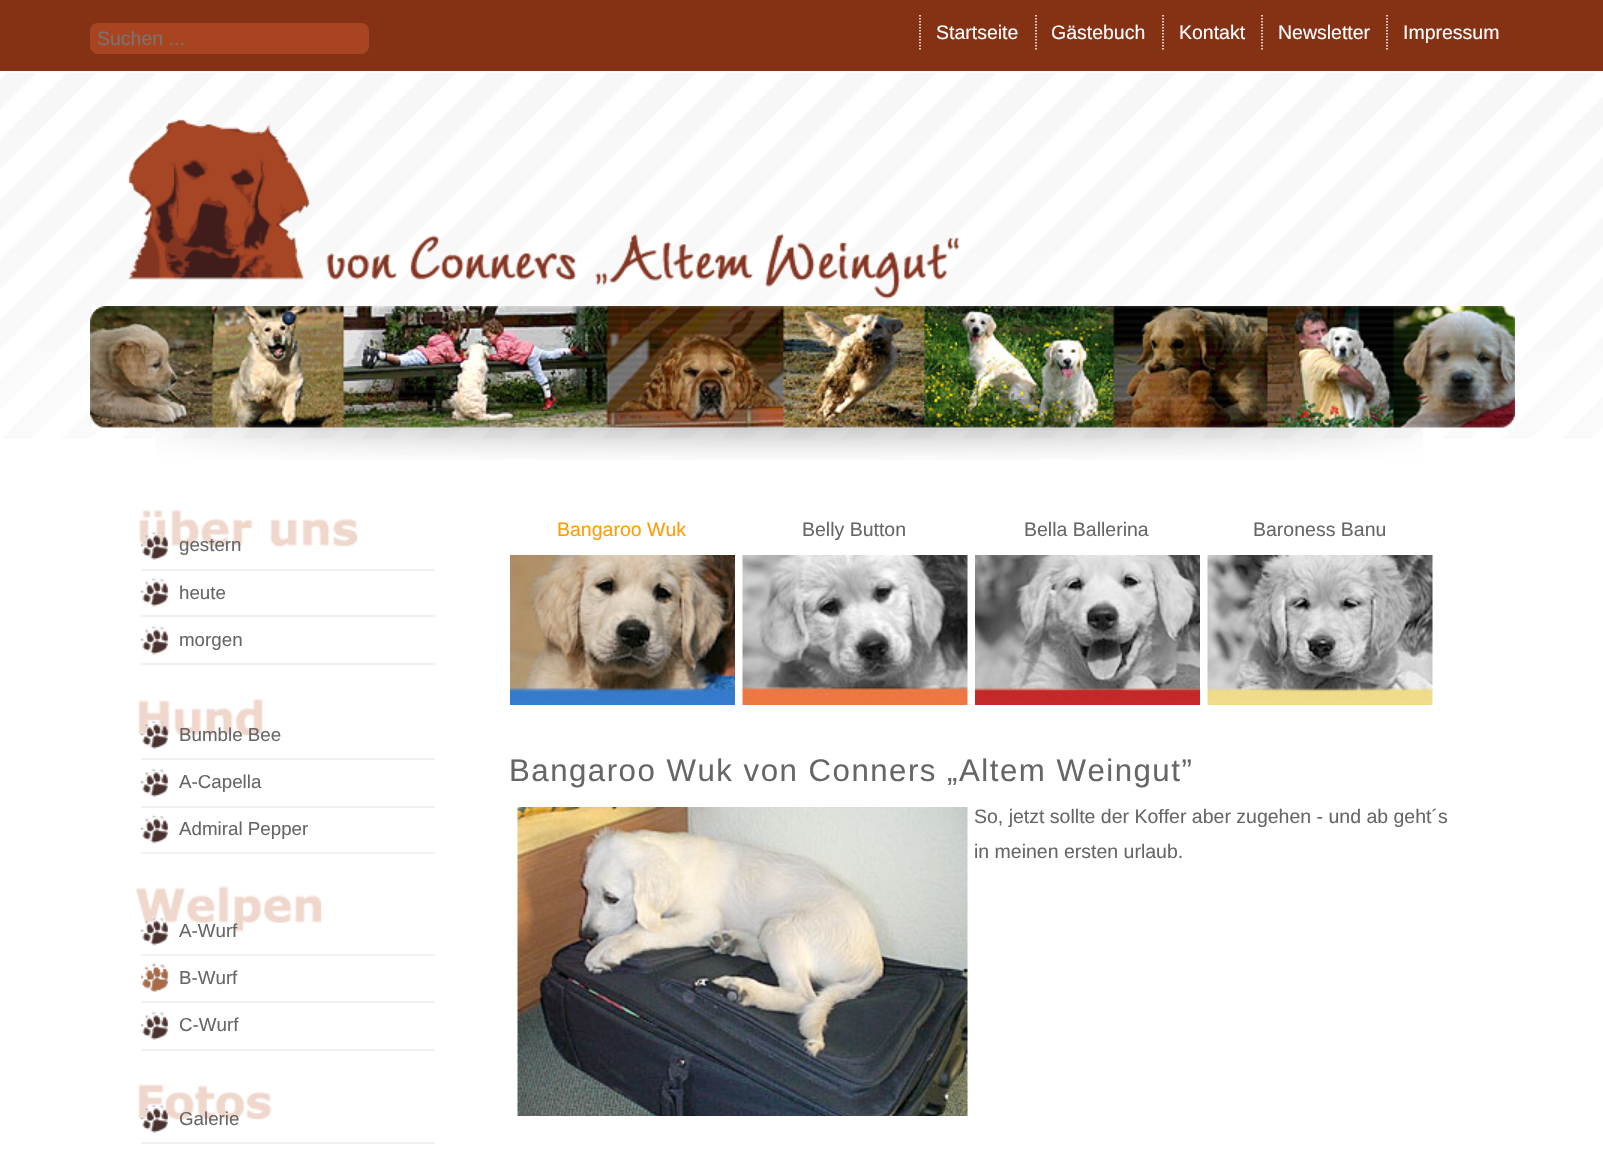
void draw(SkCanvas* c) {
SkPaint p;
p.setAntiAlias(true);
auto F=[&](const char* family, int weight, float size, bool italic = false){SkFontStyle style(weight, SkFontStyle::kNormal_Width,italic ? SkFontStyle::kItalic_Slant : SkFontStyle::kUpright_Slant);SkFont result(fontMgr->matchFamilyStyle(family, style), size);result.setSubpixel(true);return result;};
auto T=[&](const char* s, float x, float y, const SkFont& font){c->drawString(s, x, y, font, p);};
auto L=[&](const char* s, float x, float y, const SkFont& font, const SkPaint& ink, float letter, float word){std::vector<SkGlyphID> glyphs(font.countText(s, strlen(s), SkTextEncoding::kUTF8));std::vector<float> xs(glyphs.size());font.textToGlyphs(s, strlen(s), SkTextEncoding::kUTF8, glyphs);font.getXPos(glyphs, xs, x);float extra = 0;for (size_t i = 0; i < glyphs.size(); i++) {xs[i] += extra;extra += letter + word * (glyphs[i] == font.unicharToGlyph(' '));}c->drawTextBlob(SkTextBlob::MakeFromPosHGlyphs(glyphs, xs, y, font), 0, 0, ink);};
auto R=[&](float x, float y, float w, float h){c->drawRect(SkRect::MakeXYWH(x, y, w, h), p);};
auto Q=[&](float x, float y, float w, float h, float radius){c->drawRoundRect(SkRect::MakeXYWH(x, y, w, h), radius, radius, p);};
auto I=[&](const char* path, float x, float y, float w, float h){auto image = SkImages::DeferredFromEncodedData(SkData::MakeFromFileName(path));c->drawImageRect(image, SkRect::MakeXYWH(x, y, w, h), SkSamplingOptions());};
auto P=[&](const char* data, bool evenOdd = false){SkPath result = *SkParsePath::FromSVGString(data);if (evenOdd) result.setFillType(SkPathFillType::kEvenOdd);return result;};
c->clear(0xffffffff);
p.setColor(0xff853113);
R(0,0,1603,71);
p.setColor(0xffa94420);
Q(90,23,279,31,8);
auto f1 = F("Liberation Sans",400,19.5);
p.setColor(0xff757575);
T("Suchen ...",97,45,f1);
p.setStroke(true);
p.setStrokeWidth(1.5);
p.setColor(0xffffffff);
p.setPathEffect(SkDashPathEffect::Make({{1.5f,1.5f}}, 0));
c->drawPath(P("M920 15v34.5"),p);
p.setPathEffect(nullptr);
p.setStroke(false);
T("Startseite",936,39,f1);
p.setStroke(true);
p.setPathEffect(SkDashPathEffect::Make({{1.5f,1.5f}}, 0));
c->drawPath(P("M1036 15v34.5"),p);
p.setPathEffect(nullptr);
p.setStroke(false);
T("Gästebuch",1051,39,f1);
p.setStroke(true);
p.setPathEffect(SkDashPathEffect::Make({{1.5f,1.5f}}, 0));
c->drawPath(P("M1163 15v34.5"),p);
p.setPathEffect(nullptr);
p.setStroke(false);
T("Kontakt",1179,39,f1);
p.setStroke(true);
p.setPathEffect(SkDashPathEffect::Make({{1.5f,1.5f}}, 0));
c->drawPath(P("M1262 15v34.5"),p);
p.setPathEffect(nullptr);
p.setStroke(false);
T("Newsletter",1278,39,f1);
p.setStroke(true);
p.setPathEffect(SkDashPathEffect::Make({{1.5f,1.5f}}, 0));
c->drawPath(P("M1387 15v34.5"),p);
p.setPathEffect(nullptr);
p.setStroke(false);
T("Impressum",1403,39,f1);
I("1.png",0,73,1603,366);
I("2.png",128,119,831,180);
I("3.png",90,306,1425,122);
I("4.png",155,427,1268,33);
I("5.png",139,510,218,37);
I("6.png",141,531,28,29);
p.setColor(0xfff0f0f0);
R(141,569,294,2);
auto f2 = F("Liberation Sans",400,18.75);
p.setColor(0xff666666);
T("gestern",179,551,f2);
I("7.png",141,577,28,30);
p.setColor(0xfff0f0f0);
R(141,615,294,2);
p.setColor(0xff666666);
T("heute",179,599,f2);
I("7.png",141,625,28,30);
p.setColor(0xfff0f0f0);
R(141,663,294,2);
p.setColor(0xff666666);
T("morgen",179,646,f2);
I("8.png",138,699,125,37);
I("9.png",141,720,28,29);
p.setColor(0xfff0f0f0);
R(141,758,294,2);
p.setColor(0xff666666);
T("Bumble Bee",179,741,f2);
I("10.png",141,768,28,29);
p.setColor(0xfff0f0f0);
R(141,806,294,2);
p.setColor(0xff666666);
T("A-Capella",179,788,f2);
I("7.png",141,814,28,30);
p.setColor(0xfff0f0f0);
R(141,852,294,2);
p.setColor(0xff666666);
T("Admiral Pepper",179,835,f2);
I("11.png",135,886,187,46);
I("12.png",141,916,28,30);
p.setColor(0xfff0f0f0);
R(141,954,294,2);
p.setColor(0xff666666);
T("A-Wurf",179,937,f2);
I("13.png",141,963,28,29);
p.setColor(0xfff0f0f0);
R(141,1001,294,2);
p.setColor(0xff666666);
T("B-Wurf",179,984,f2);
I("10.png",141,1011,28,29);
p.setColor(0xfff0f0f0);
R(141,1049,294,2);
p.setColor(0xff666666);
T("C-Wurf",179,1031,f2);
I("14.png",138,1084,134,36);
I("15.png",141,1104,28,29);
p.setColor(0xfff0f0f0);
R(141,1142,294,2);
p.setColor(0xff666666);
T("Galerie",179,1125,f2);
I("16.png",510,555,225,150);
p.setColor(0xffff9c00);
T("Bangaroo Wuk",557,536,f1);
I("17.png",742,555,226,150);
p.setColor(0xff666666);
T("Belly Button",802,536,f1);
I("18.png",975,555,225,150);
T("Bella Ballerina",1024,536,f1);
I("19.png",1207,555,226,150);
T("Baroness Banu",1253,536,f1);
auto f3 = F("Liberation Sans",400,31.2);
L("Bangaroo Wuk von Conners „Altem Weingut”",509,781,f3,p,1.5,0);
I("20.png",517,807,451,309);
T("So, jetzt sollte der Koffer aber zugehen - und ab geht´s",974,823,f1);
T("in meinen ersten urlaub.",974,858,f1);
}
